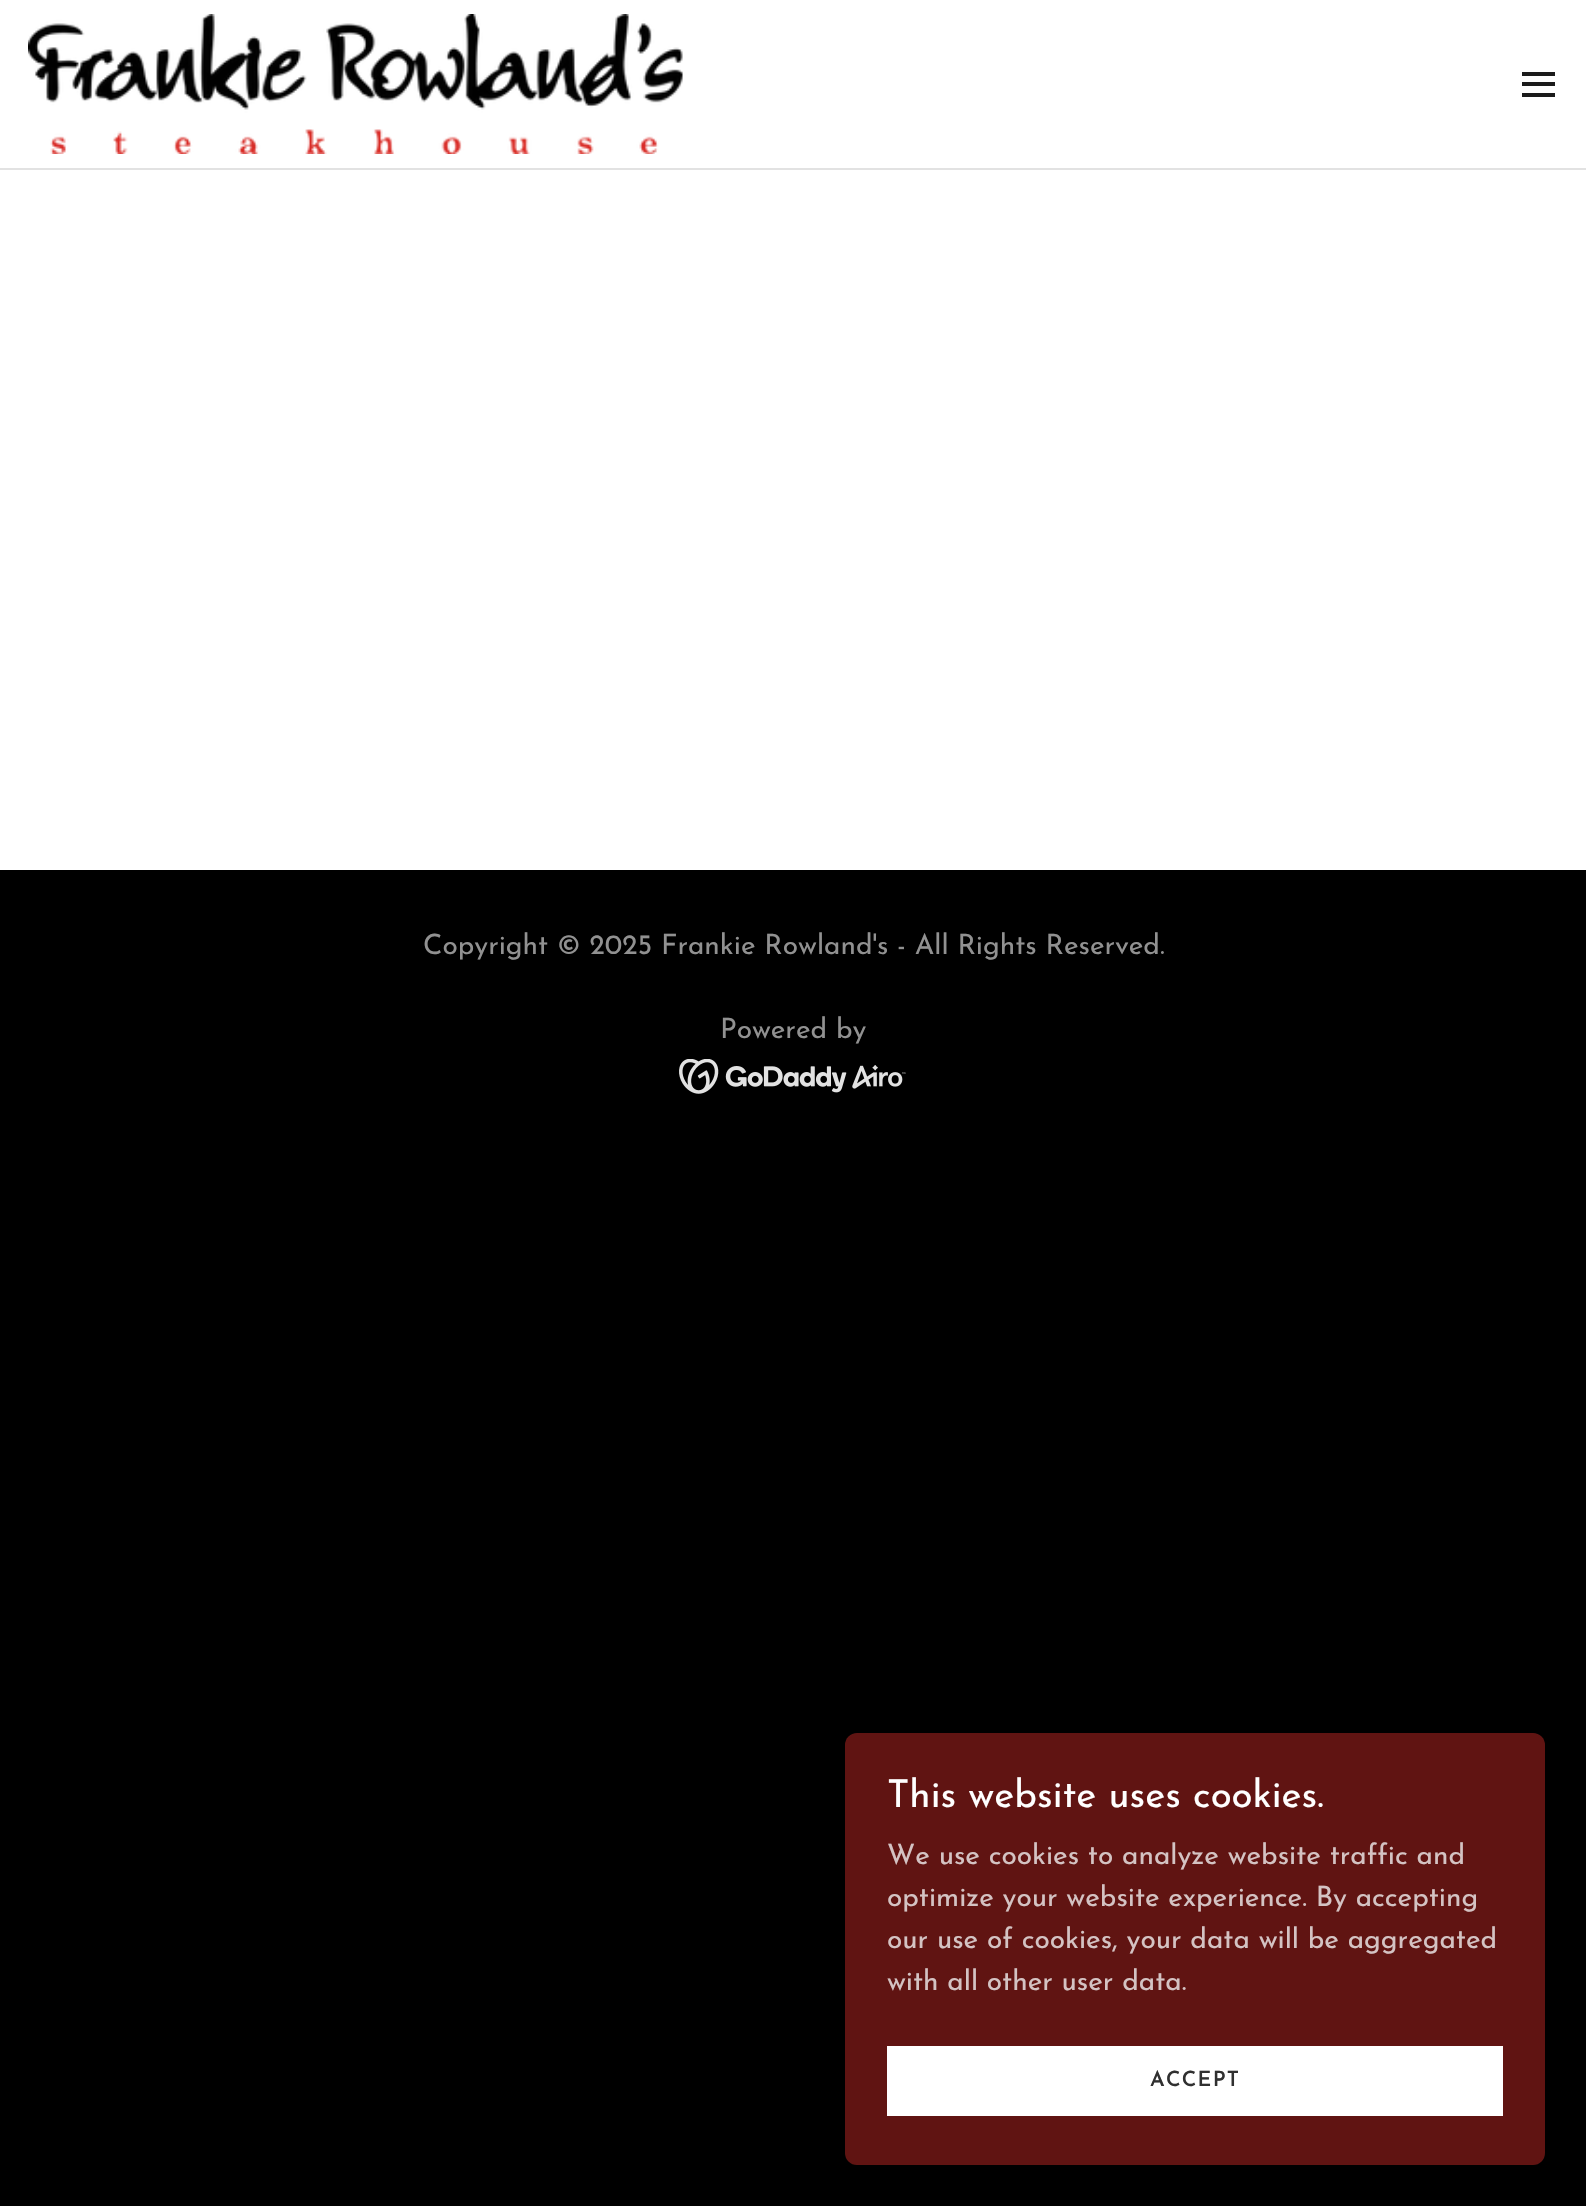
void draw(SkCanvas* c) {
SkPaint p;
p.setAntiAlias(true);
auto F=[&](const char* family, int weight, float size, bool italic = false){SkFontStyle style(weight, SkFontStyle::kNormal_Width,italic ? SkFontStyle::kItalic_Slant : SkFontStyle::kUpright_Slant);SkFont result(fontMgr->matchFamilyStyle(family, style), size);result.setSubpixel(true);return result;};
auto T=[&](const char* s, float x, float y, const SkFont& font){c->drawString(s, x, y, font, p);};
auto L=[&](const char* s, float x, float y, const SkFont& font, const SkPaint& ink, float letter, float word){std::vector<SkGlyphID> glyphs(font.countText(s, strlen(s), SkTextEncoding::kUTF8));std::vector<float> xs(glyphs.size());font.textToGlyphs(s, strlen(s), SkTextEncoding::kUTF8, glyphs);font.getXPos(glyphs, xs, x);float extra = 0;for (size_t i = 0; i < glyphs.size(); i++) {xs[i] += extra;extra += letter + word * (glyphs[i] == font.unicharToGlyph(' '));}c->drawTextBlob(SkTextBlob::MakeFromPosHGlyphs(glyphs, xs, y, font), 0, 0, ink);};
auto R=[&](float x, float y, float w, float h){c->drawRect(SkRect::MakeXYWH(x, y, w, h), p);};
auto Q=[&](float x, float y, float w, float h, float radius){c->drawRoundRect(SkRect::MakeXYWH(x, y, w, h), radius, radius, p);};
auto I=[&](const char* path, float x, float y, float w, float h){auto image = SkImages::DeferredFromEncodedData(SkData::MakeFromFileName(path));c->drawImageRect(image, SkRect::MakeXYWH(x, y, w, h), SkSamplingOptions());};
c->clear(0xff000000);
p.setColor(0xffffffff);
R(0,0,1586,168);
I("1.png",28,14,655,140);
p.setColor(0xff1b1b1b);
R(1522,72,33,4);
R(1522,82,33,4);
R(1522,93,33,4);
p.setColor(0xffe2e2e2);
R(0,168,1586,2);
p.setColor(0xffffffff);
R(0,170,1586,700);
auto f1 = F("Josefin Sans",400,28);
p.setColor(0xff919191);
T("Copyright © 2025 Frankie Rowland's - All Rights Reserved.",423,954,f1);
T("Powered by",720,1038,f1);
I("2.png",679,1059,227,35);
p.setColor(0xff601412);
Q(845,1733,700,432,12);
auto f2 = F("Josefin Sans",400,38.5);
p.setColor(0xffffffff);
T("This website uses cookies.",887,1807,f2);
p.setColor(0xffd4c3c3);
T("We use cookies to analyze website traffic and",887,1864,f1);
T("optimize your website experience. By accepting",887,1906,f1);
T("our use of cookies, your data will be aggregated",887,1948,f1);
T("with all other user data.",887,1990,f1);
p.setColor(0xffffffff);
R(887,2046,616,70);
auto f3 = F("Josefin Sans",600,21);
p.setColor(0xff303030);
L("ACCEPT",1150,2086,f3,p,1.25,0);
}
